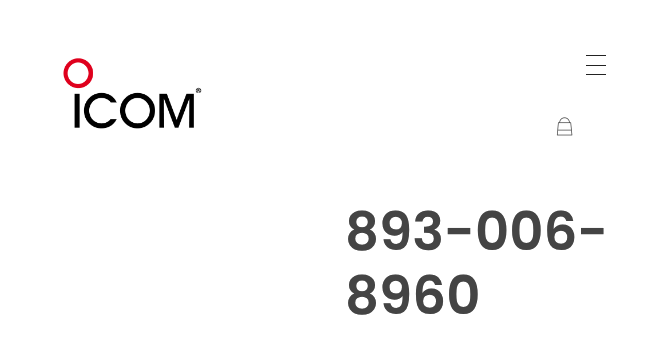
void draw(SkCanvas* c) {
SkPaint p;
p.setAntiAlias(true);
auto F=[&](const char* family, int weight, float size, bool italic = false){SkFontStyle style(weight, SkFontStyle::kNormal_Width,italic ? SkFontStyle::kItalic_Slant : SkFontStyle::kUpright_Slant);SkFont result(fontMgr->matchFamilyStyle(family, style), size);result.setSubpixel(true);return result;};
auto T=[&](const char* s, float x, float y, const SkFont& font){c->drawString(s, x, y, font, p);};
auto R=[&](float x, float y, float w, float h){c->drawRect(SkRect::MakeXYWH(x, y, w, h), p);};
auto I=[&](const char* path, float x, float y, float w, float h){auto image = SkImages::DeferredFromEncodedData(SkData::MakeFromFileName(path));c->drawImageRect(image, SkRect::MakeXYWH(x, y, w, h), SkSamplingOptions());};
c->clear(0xffffffff);
I("1.png",63,58,139,71);
I("2.png",556,117,17,19);
p.setColor(0xff222222);
R(586,55,20,1);
R(586,65,20,1);
R(586,74,20,1);
auto f1 = F("Poppins",600,53);
p.setColor(0xff444444);
T("893-006-",345,250,f1);
T("8960",345,314,f1);
}
